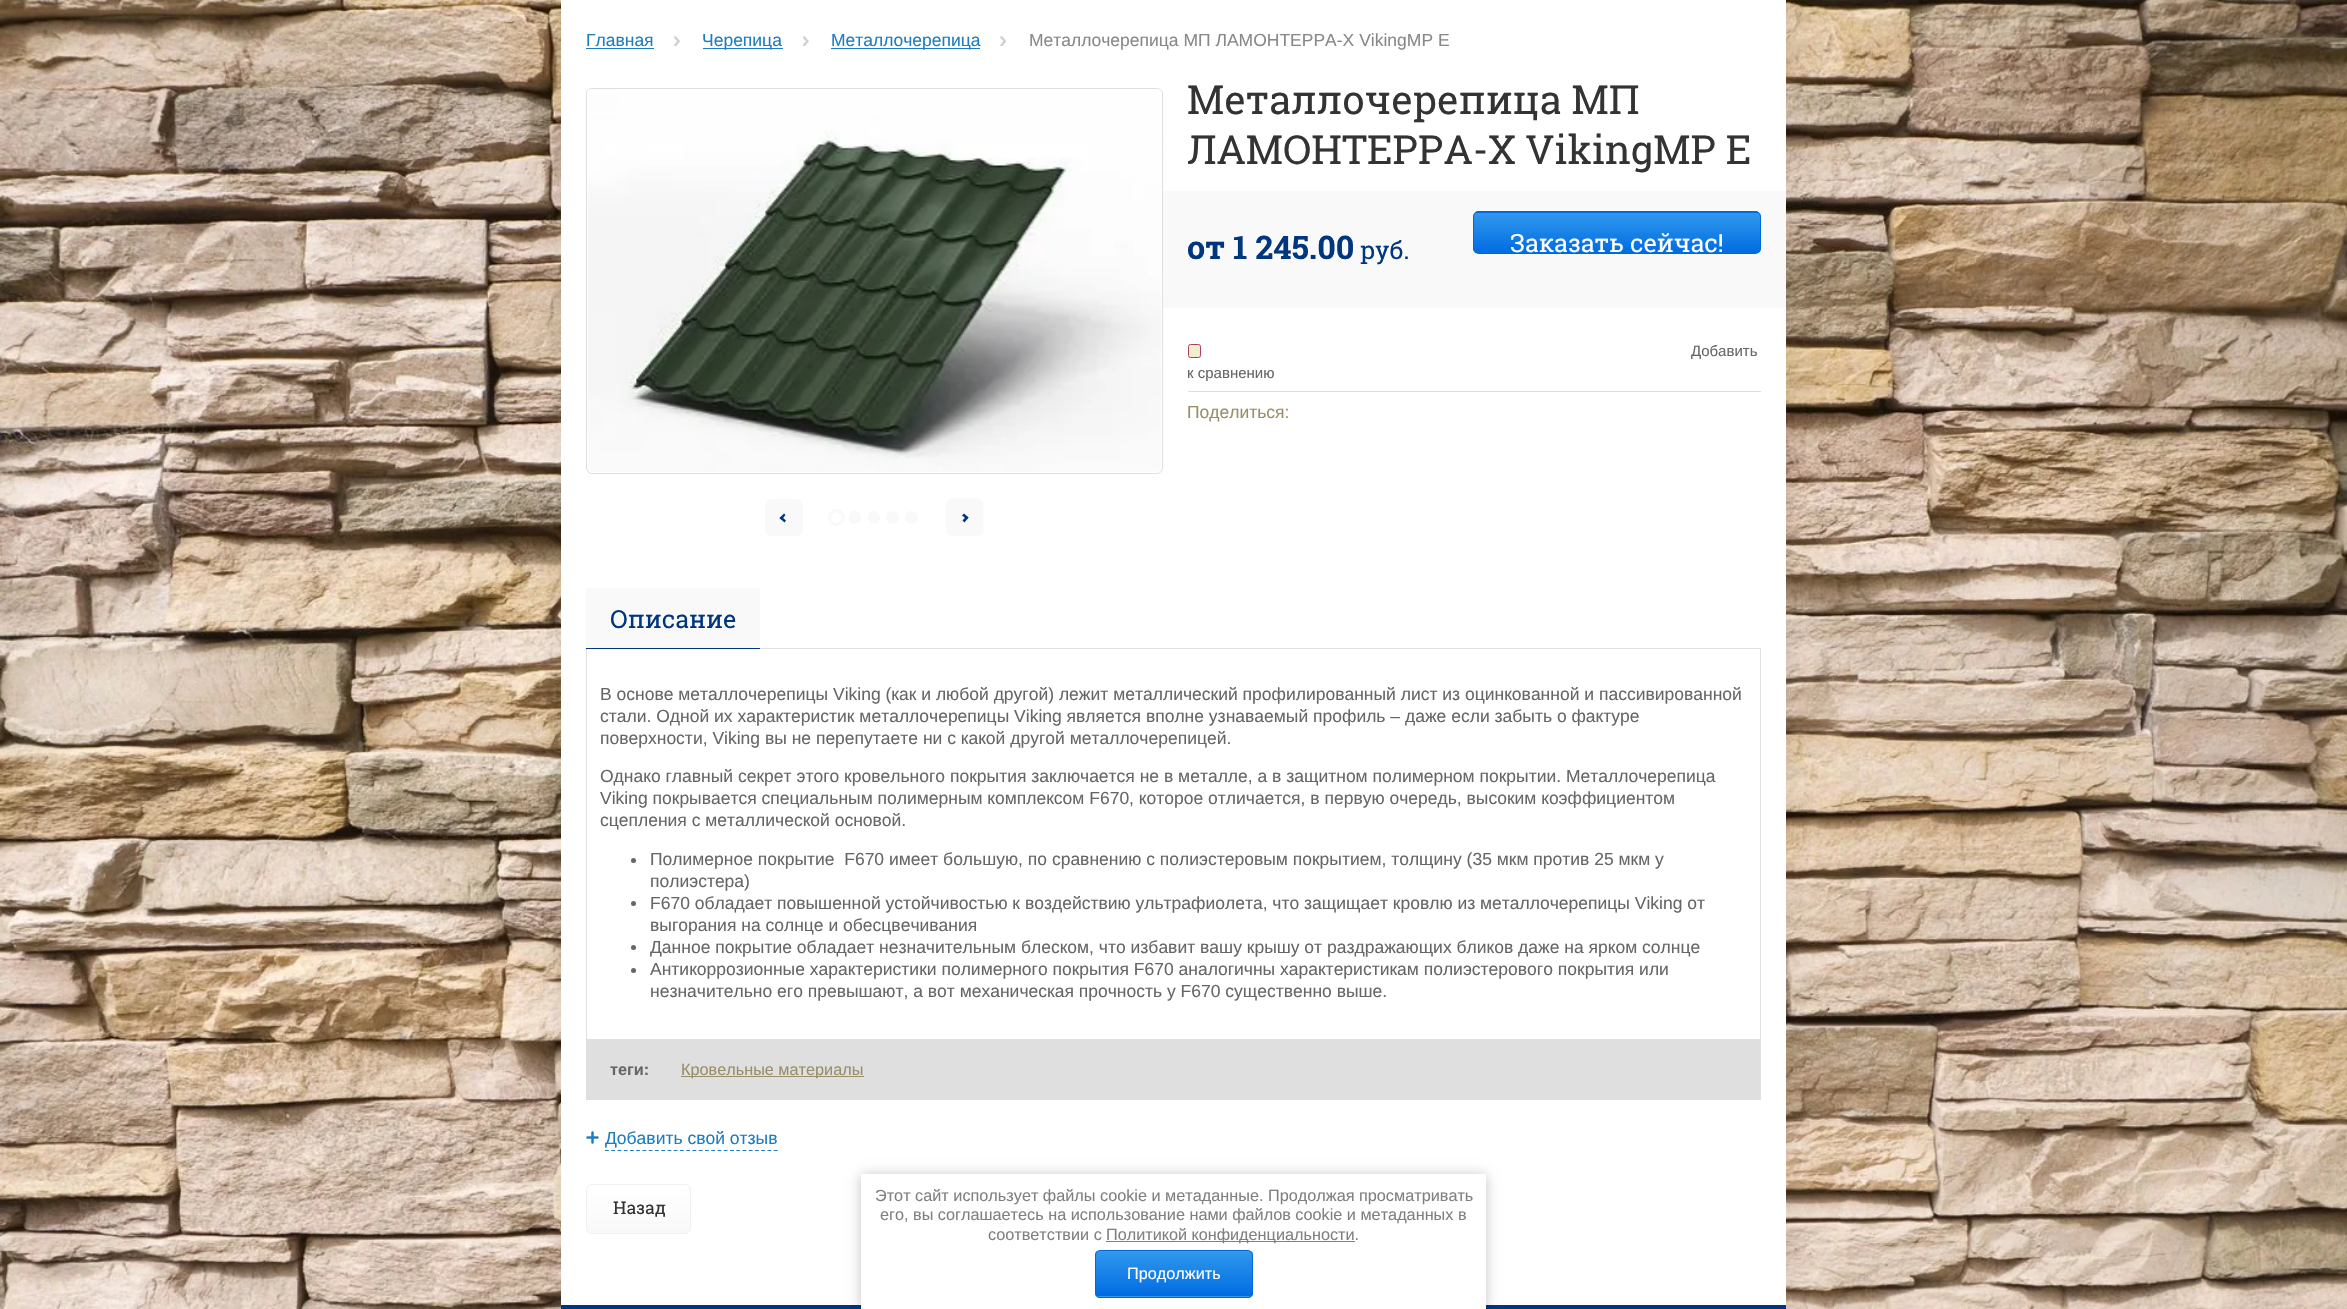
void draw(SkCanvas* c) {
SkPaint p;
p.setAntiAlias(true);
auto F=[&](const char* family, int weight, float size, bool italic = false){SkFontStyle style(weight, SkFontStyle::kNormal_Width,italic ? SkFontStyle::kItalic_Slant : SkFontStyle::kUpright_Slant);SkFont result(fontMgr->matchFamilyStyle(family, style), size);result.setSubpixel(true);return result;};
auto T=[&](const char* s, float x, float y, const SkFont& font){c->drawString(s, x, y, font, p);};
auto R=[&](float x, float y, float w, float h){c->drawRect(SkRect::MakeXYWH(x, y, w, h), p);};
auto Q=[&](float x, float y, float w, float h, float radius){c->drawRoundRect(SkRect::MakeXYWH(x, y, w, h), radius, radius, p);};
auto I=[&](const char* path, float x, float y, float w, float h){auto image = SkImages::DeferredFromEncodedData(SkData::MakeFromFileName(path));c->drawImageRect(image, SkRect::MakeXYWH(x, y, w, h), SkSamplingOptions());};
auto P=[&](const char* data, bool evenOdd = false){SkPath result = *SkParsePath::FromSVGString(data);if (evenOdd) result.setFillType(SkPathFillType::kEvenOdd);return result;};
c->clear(0xffffffff);
I("1.png",0,0,2347,1309);
p.setColor(0x1a000000);
p.setMaskFilter(SkMaskFilter::MakeBlur(kNormal_SkBlurStyle, 12.5));
c->drawRect(SkRect::MakeXYWH(561,-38,1225,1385),p);
p.setMaskFilter(nullptr);
p.setColor(0xffffffff);
R(561,0,1225,1305);
auto f1 = F("Liberation Sans",400,17.5);
p.setColor(0xff1e7dbf);
T("Главная",586,46,f1);
R(586,48,68,1);
I("2.png",674,36,6,10);
R(703,48,80,1);
T("Черепица",702,46,f1);
I("3.png",803,36,6,10);
R(831,48,149,1);
T("Металлочерепица",831,46,f1);
I("4.png",1000,36,6,10);
p.setColor(0xff888888);
T("Металлочерепица МП ЛАМОНТЕРРА-Х VikingMP E",1029,46,f1);
p.setStroke(true);
p.setStrokeWidth(1);
p.setColor(0xffdfdfdf);
c->drawRoundRect(SkRect::MakeXYWH(586.5,88.5,576,385),5.5,5.5,p);
I("5.png",588,89,573,383);
p.setStroke(false);
p.setColor(0xfff9f9f9);
Q(765,499,38,37,6);
p.setColor(0xff00357f);
c->drawPath(P("M786 520.5l-1.5 2l-5-4.5l2-1.5z"),p);
c->drawPath(P("M785.5 515l-4 5l-2-2l4.5-4.5z"),p);
p.setColor(0xfff9f9f9);
c->drawPath(P("M977 536h-25c-3 0-6-3-6-6v-25c0-3.5 3-6.5 6-6.5h25c3.5 0 6.5 3 6.5 6.5v25c0 3-3 6-6.5 6z"),p);
p.setColor(0xff00357f);
c->drawPath(P("M962 515.5l2-2l4.5 4l-1.5 2z"),p);
c->drawPath(P("M962.5 520.5l4-4.5l2 1.5l-4 5z"),p);
p.setStroke(true);
p.setStrokeWidth(3);
p.setColor(0xfff9f9f9);
c->drawCircle(836.5,517.5,7,p);
p.setStroke(false);
Q(849,511,12,13,6);
Q(868,511,12,13,6);
c->drawCircle(892.5,517.5,6.5,p);
c->drawCircle(911.5,517.5,6.5,p);
auto f2 = F("Roboto Slab",400,40);
p.setColor(0xff333333);
T("Металлочерепица МП",1187,114,f2);
T("ЛАМОНТЕРРА-Х VikingMP E",1187,164,f2);
p.setColor(0xfff9f9f9);
R(1163,191,623,117);
auto f3 = F("Roboto Slab",700,32.5);
p.setColor(0xff00357f);
T("от 1 245.00",1187,259,f3);
auto f4 = F("Roboto Slab",400,25);
T("руб.",1360,259,f4);
c->save();
c->clipPath(P("M1479 211h276c3.5 0 6 2.5 6 6v31c0 3.5-2.5 6-6 6h-276c-3.5 0-6-2.5-6-6v-31c0-3.5 2.5-6 6-6z"),true);
{
const SkColor colors[] = {0xff3198ed,0xff006ce2};
const float stops[] = {0,1};
const SkPoint ends[] = {{1617,173}, {1617,213}};
p.setShader(SkGradientShader::MakeLinear(ends, colors, stops, 2, SkTileMode::kClamp));
p.setAlpha(255);
}
R(1473,211,288,2);
{
const SkColor colors[] = {0xff3198ed,0xff006ce2};
const float stops[] = {0,1};
const SkPoint ends[] = {{1617,213}, {1617,253}};
p.setShader(SkGradientShader::MakeLinear(ends, colors, stops, 2, SkTileMode::kClamp));
p.setAlpha(255);
}
R(1473,213,288,40);
c->restore();
p.setStroke(true);
p.setStrokeWidth(1);
p.setShader(nullptr);
p.setColor(0xff0068da);
c->drawRoundRect(SkRect::MakeXYWH(1473.5,211.5,287,42),5.5,5.5,p);
p.setStroke(false);
p.setColor(0xffffffff);
T("Заказать сейчас!",1510,252,f4);
p.setColor(0xffdedede);
R(1188,391,573,1);
p.setColor(0xfff1edcf);
c->drawRoundRect(SkRect::MakeXYWH(1188.5,344.5,12,13),2,2,p);
p.setStroke(true);
p.setColor(0xffac405a);
c->drawRoundRect(SkRect::MakeXYWH(1188.5,344.5,12,13),2,2,p);
auto f5 = F("Liberation Sans",400,15);
p.setStroke(false);
p.setColor(0xff666666);
T("Добавить",1691,356,f5);
T("к сравнению",1187,378,f5);
p.setColor(0xff988e68);
T("Поделиться:",1187,418,f1);
p.setColor(0xfff9f9f9);
R(586,588,174,60);
p.setStroke(true);
p.setColor(0xffdfdfdf);
c->drawRect(SkRect::MakeXYWH(586.5,648.5,1174,391),p);
p.setStroke(false);
p.setColor(0xff00357f);
R(586,648,174,1);
T("Описание",610,628,f4);
p.setColor(0xff666666);
T("В основе металлочерепицы Viking (как и любой другой) лежит металлический профилированный лист из оцинкованной и пассивированной",600,700,f1);
T("стали. Одной их характеристик металлочерепицы Viking является вполне узнаваемый профиль – даже если забыть о фактуре",600,722,f1);
T("поверхности, Viking вы не перепутаете ни с какой другой металлочерепицей.",600,744,f1);
T("Однако главный секрет этого кровельного покрытия заключается не в металле, а в защитном полимерном покрытии. Металлочерепица",600,782,f1);
T("Viking покрывается специальным полимерным комплексом F670, которое отличается, в первую очередь, высоким коэффициентом",600,804,f1);
T("сцепления с металлической основой.",600,826,f1);
c->drawCircle(633.5,860.5,2.5,p);
T("Полимерное покрытие  F670 имеет большую, по сравнению с полиэстеровым покрытием, толщину (35 мкм против 25 мкм у",650,865,f1);
T("полиэстера)",650,887,f1);
c->drawCircle(633.5,903.5,2.5,p);
T("F670 обладает повышенной устойчивостью к воздействию ультрафиолета, что защищает кровлю из металлочерепицы Viking от",650,909,f1);
T("выгорания на солнце и обесцвечивания",650,931,f1);
c->drawCircle(633.5,947.5,2.5,p);
T("Данное покрытие обладает незначительным блеском, что избавит вашу крышу от раздражающих бликов даже на ярком солнце",650,953,f1);
c->drawCircle(633.5,970.5,2.5,p);
T("Антикоррозионные характеристики полимерного покрытия F670 аналогичны характеристикам полиэстерового покрытия или",650,975,f1);
T("незначительно его превышают, а вот механическая прочность у F670 существенно выше.",650,997,f1);
p.setColor(0xffdfdfdf);
R(586,1040,1175,60);
auto f6 = F("Liberation Sans",700,16.25);
p.setColor(0xff666666);
T("теги:",610,1075,f6);
p.setColor(0xff988e68);
R(681,1076,183,1);
auto f7 = F("Liberation Sans",400,16.25);
T("Кровельные материалы",681,1075,f7);
p.setStroke(true);
p.setStrokeWidth(1.2);
p.setColor(0xff1e7dbf);
p.setPathEffect(SkDashPathEffect::Make({{3.75f,2.5f}}, 0));
c->drawPath(P("M605 1150.5h172.5"),p);
p.setPathEffect(nullptr);
I("6.png",586,1131,13,13);
p.setStroke(false);
T("Добавить свой отзыв",605,1144,f1);
c->save();
c->clipPath(P("M592 1184h93c3.5 0 6 2.5 6 6v38c0 3.5-2.5 6-6 6h-93c-3.5 0-6-2.5-6-6v-38c0-3.5 2.5-6 6-6z"),true);
{
const SkColor colors[] = {0xffffffff,0xfff9f9f9};
const float stops[] = {0,1};
const SkPoint ends[] = {{639,1185}, {639,1233}};
p.setShader(SkGradientShader::MakeLinear(ends, colors, stops, 2, SkTileMode::kClamp));
p.setAlpha(255);
}
R(586,1185,105,48);
c->restore();
p.setStroke(true);
p.setStrokeWidth(1);
p.setShader(nullptr);
p.setColor(0xfff0f0f0);
c->drawRoundRect(SkRect::MakeXYWH(586.5,1184.5,104,49),5.5,5.5,p);
auto f8 = F("Roboto Slab",400,17.5);
p.setStroke(false);
p.setColor(0xff333333);
T("Назад",613,1214,f8);
p.setColor(0xff00357f);
R(561,1305,1225,4);
p.setColor(0x3b000000);
p.setMaskFilter(SkMaskFilter::MakeBlur(kNormal_SkBlurStyle, 6));
c->drawRect(SkRect::MakeXYWH(861,1175,625,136),p);
p.setMaskFilter(nullptr);
p.setColor(0xffffffff);
R(861,1174,625,135);
p.setColor(0xff808080);
T("Этот сайт использует файлы cookie и метаданные. Продолжая просматривать",875,1201,f7);
T("его, вы соглашаетесь на использование нами файлов cookie и метаданных в",880,1220,f7);
T("соответствии с",988,1240,f7);
R(1106,1241,249,1);
T("Политикой конфиденциальности.",1106,1240,f7);
c->save();
c->clipPath(P("M1100 1250h148c3 0 5 2 5 5v38c0 3-2 5-5 5h-148c-3 0-5-2-5-5v-38c0-3 2-5 5-5z"),true);
{
const SkColor colors[] = {0xff3198ed,0xff006ce2};
const float stops[] = {0,1};
const SkPoint ends[] = {{1174,1251}, {1174,1296}};
p.setShader(SkGradientShader::MakeLinear(ends, colors, stops, 2, SkTileMode::kClamp));
p.setAlpha(255);
}
R(1095,1251,158,45);
{
const SkColor colors[] = {0xff3198ed,0xff006ce2};
const float stops[] = {0,1};
const SkPoint ends[] = {{1174,1296}, {1174,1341}};
p.setShader(SkGradientShader::MakeLinear(ends, colors, stops, 2, SkTileMode::kClamp));
p.setAlpha(255);
}
R(1095,1296,158,2);
c->restore();
p.setStroke(true);
p.setShader(nullptr);
p.setColor(0xff0068da);
c->drawRoundRect(SkRect::MakeXYWH(1095.5,1250.5,157,47),4.5,4.5,p);
p.setStroke(false);
p.setColor(0xffffffff);
T("Продолжить",1127,1279,f7);
}
